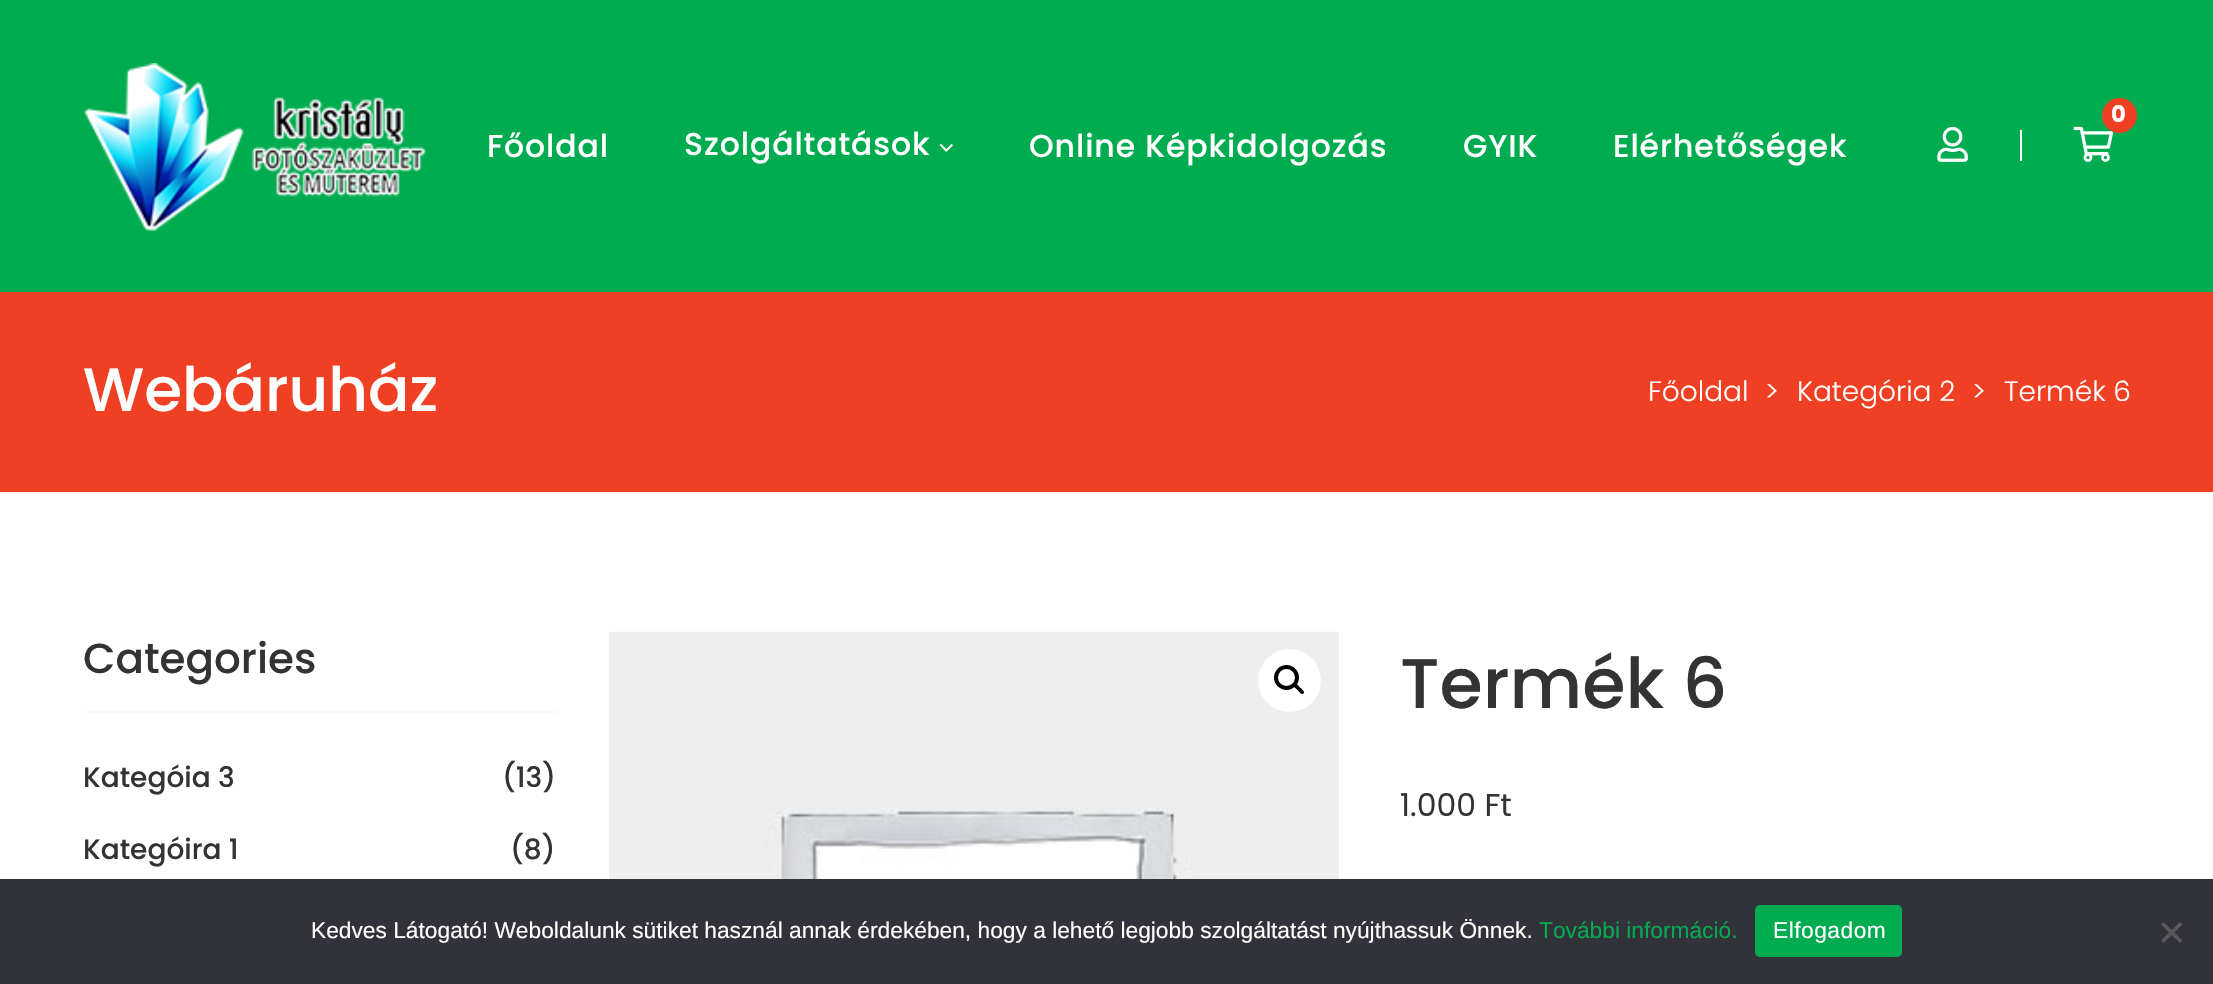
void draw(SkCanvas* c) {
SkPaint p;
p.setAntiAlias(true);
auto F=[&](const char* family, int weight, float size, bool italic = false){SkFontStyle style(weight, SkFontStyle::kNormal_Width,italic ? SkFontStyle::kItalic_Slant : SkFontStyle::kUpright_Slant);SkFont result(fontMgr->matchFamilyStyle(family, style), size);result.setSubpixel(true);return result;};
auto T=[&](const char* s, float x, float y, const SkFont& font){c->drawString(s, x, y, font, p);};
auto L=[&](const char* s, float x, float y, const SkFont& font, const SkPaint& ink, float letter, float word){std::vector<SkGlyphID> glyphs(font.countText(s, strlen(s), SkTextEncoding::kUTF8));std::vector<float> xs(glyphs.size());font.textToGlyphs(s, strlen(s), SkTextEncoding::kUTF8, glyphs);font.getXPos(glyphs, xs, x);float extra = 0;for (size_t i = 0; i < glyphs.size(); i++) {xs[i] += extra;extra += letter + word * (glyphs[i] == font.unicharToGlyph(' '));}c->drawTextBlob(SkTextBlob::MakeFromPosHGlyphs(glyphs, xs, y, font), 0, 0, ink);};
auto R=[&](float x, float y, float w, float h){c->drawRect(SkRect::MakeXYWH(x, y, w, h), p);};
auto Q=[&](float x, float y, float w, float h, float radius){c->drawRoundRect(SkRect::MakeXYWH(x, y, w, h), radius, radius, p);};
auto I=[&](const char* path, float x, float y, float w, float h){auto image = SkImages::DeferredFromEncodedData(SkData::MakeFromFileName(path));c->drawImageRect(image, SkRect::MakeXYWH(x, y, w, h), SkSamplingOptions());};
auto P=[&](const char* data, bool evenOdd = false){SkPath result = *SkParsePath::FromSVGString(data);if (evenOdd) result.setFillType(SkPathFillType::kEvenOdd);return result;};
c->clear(0xffffffff);
p.setColor(0xff00ac4f);
R(0,0,2213,292);
I("1.png",84,63,342,168);
I("2.png",2073,126,41,36);
p.setColor(0xffef4023);
c->drawCircle(2119.5,115.5,17.5,p);
auto f1 = F("Poppins",700,22.75);
p.setColor(0xffffffff);
T("0",2111,122,f1);
I("3.png",1937,126,31,36);
R(2020,130,2,31);
auto f2 = F("Poppins",500,31.5);
L("Főoldal",487,157,f2,p,.9,0);
L("Szolgáltatások",684,155,f2,p,.9,0);
I("4.png",939,144,14,8);
L("Online Képkidolgozás",1029,157,f2,p,.9,0);
L("GYIK",1463,157,f2,p,.9,0);
L("Elérhetőségek",1613,157,f2,p,.9,0);
p.setColor(0xffef4023);
R(0,292,2213,200);
auto f3 = F("Poppins",500,61.25);
p.setColor(0xffffffff);
T("Webáruház",83,411,f3);
auto f4 = F("Poppins",300,28);
T("Főoldal",1648,401,f4);
T(">",1765,401,f4);
T("Kategória 2",1797,401,f4);
T(">",1972,401,f4);
T("Termék 6",2004,401,f4);
p.setColor(0xfff8f8f8);
R(84,711,473,2);
auto f5 = F("Poppins",500,42);
p.setColor(0xff333333);
T("Categories",83,673,f5);
auto f6 = F("Poppins",500,28);
T("Kategóia 3",83,787,f6);
T("(13)",502,787,f6);
T("Kategóira 1",83,859,f6);
T("(8)",510,859,f6);
I("5.png",609,631,730,248);
p.setColor(0xffffffff);
c->drawCircle(1289.5,680.5,31.5,p);
p.setStroke(true);
p.setStrokeWidth(4);
p.setColor(0xff000000);
c->drawCircle(1286.5,677.5,10.5,p);
p.setStroke(false);
c->drawPath(P("M1293.5 683.5c2-2 5.5 3 6.5 4c1 1 5.5 4 3.5 6c-2 2-5-2.5-6-3.5c-1-1-6-4.5-4-6.5z"),p);
auto f7 = F("Poppins",500,70);
p.setColor(0xff333333);
T("Termék 6",1400,708,f7);
auto f8 = F("Poppins",400,31.5);
T("1.000 Ft",1400,816,f8);
p.setColor(0xff32323a);
R(0,879,2213,105);
auto f9 = F("Liberation Sans",400,22.75);
p.setColor(0xffffffff);
T("Kedves Látogató! Weboldalunk sütiket használ annak érdekében, hogy a lehető legjobb szolgáltatást nyújthassuk Önnek.",311,938,f9);
p.setColor(0xff00ac4f);
T("További információ.",1539,938,f9);
Q(1755,905,147,52,5);
p.setColor(0xffffffff);
L("Elfogadom",1773,938,f9,p,.5,0);
p.setColor(0xff59595d);
c->drawPath(P("M2180 922l2.5 2.5l-19 18.5l-2.5-2.5z"),p);
c->drawPath(P("M2161 924.5l2.5-2.5l19 18.5l-2.5 2.5z"),p);
}
